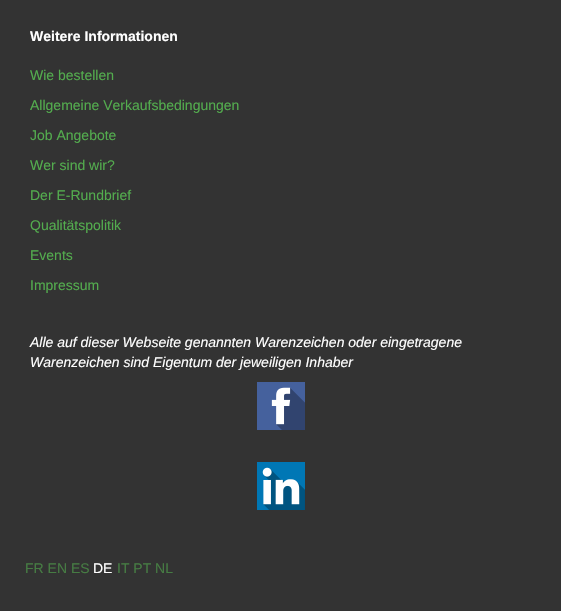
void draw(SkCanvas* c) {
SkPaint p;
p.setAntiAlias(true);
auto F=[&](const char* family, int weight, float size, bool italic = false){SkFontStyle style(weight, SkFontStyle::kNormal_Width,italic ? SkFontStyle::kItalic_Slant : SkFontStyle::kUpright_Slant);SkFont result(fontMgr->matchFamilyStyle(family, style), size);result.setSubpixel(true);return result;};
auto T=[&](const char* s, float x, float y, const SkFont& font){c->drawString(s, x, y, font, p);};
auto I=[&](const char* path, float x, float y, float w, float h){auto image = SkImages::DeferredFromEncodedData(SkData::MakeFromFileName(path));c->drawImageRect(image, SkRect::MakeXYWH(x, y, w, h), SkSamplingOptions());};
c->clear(0xff333333);
auto f1 = F("Liberation Sans",700,14);
p.setColor(0xffffffff);
T("Weitere Informationen",30,41,f1);
auto f2 = F("Liberation Sans",400,14);
p.setColor(0xff53ac4e);
T("Wie bestellen",30,80,f2);
T("Allgemeine Verkaufsbedingungen",30,110,f2);
T("Job Angebote",30,140,f2);
T("Wer sind wir?",30,170,f2);
T("Der E-Rundbrief",30,200,f2);
T("Qualitätspolitik",30,230,f2);
T("Events",30,260,f2);
T("Impressum",30,290,f2);
auto f3 = F("Liberation Sans",400,14,true);
p.setColor(0xffffffff);
T("Alle auf dieser Webseite genannten Warenzeichen oder eingetragene",30,347,f3);
T("Warenzeichen sind Eigentum der jeweiligen Inhaber",30,367,f3);
I("1.png",257,382,48,48);
I("2.png",257,462,48,48);
p.setColor(0xff467c43);
T("FR EN ES",25,573,f2);
p.setColor(0xffffffff);
T("DE",93,573,f2);
p.setColor(0xff467c43);
T("IT PT NL",117,573,f2);
}
